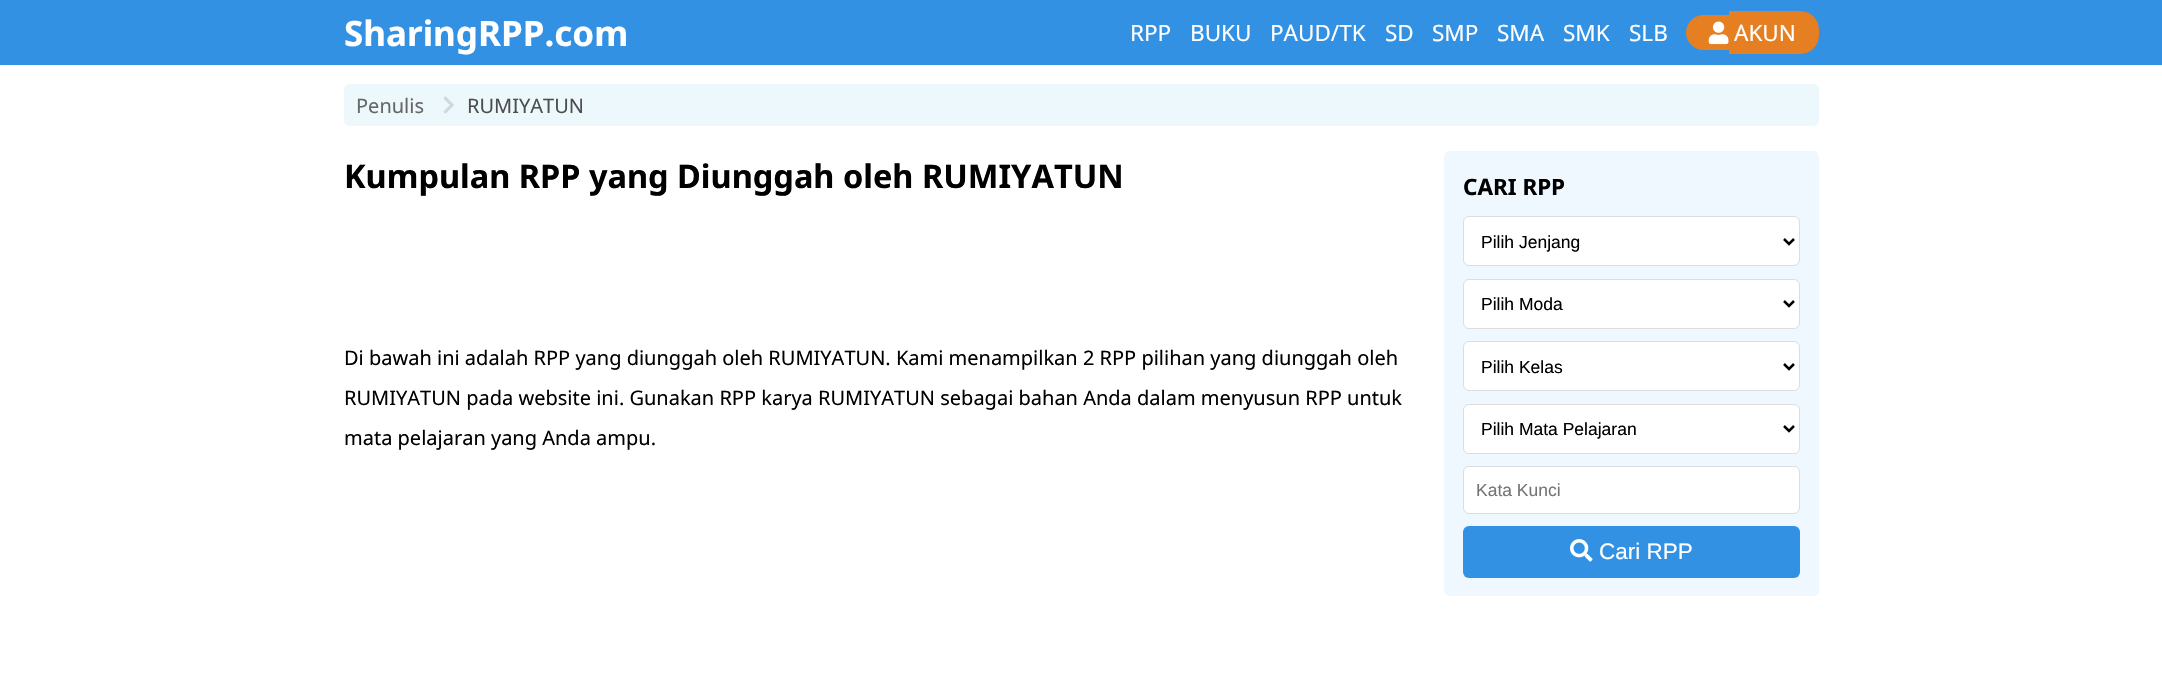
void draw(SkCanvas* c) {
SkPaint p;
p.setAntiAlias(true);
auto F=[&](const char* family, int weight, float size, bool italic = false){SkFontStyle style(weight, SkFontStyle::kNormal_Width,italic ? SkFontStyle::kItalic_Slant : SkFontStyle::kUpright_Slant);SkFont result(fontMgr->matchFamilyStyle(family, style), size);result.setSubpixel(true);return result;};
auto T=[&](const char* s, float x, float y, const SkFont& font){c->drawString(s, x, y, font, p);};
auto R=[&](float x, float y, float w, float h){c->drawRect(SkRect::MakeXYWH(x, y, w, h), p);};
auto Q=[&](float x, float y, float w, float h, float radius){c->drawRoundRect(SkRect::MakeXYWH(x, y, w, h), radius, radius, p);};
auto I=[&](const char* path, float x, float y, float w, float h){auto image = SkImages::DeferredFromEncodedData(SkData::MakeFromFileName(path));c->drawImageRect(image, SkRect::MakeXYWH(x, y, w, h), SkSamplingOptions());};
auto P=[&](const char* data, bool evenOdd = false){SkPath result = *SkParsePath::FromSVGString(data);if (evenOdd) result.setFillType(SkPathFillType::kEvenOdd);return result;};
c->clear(0xffffffff);
p.setColor(0xff3391e3);
R(0,0,2162,65);
auto f1 = F("Noto Sans",700,35);
p.setColor(0xffffffff);
T("SharingRPP.com",344,46,f1);
auto f2 = F("Noto Sans",400,22.5);
T("RPP",1130,41,f2);
T("BUKU",1190,41,f2);
T("PAUD/TK",1270,41,f2);
T("SD",1385,41,f2);
T("SMP",1432,41,f2);
T("SMA",1497,41,f2);
T("SMK",1563,41,f2);
T("SLB",1629,41,f2);
p.setColor(0xffe67e22);
c->drawPath(P("M1703.5 15h25.5v35h-25.5c-9.5 0-17.5-8-17.5-17.5c0-9.5 8-17.5 17.5-17.5z"),p);
c->drawPath(P("M1729 11h71c10.5 0 19 8.5 19 19v5c0 10.5-8.5 19-19 19h-71z"),p);
I("1.png",1708,21,21,24);
p.setColor(0xffffffff);
T("AKUN",1734,41,f2);
p.setColor(0xffedf8fd);
Q(344,84,1475,42,6);
auto f3 = F("Noto Sans",400,20);
p.setColor(0xff666666);
T("Penulis",356,113,f3);
I("2.png",443,96,11,18);
p.setColor(0xff4e4e4e);
T("RUMIYATUN",467,113,f3);
auto f4 = F("Noto Sans",700,32.5);
p.setColor(0xff000000);
T("Kumpulan RPP yang Diunggah oleh RUMIYATUN",344,188,f4);
T("Di bawah ini adalah RPP yang diunggah oleh RUMIYATUN. Kami menampilkan 2 RPP pilihan yang diunggah oleh",344,365,f3);
T("RUMIYATUN pada website ini. Gunakan RPP karya RUMIYATUN sebagai bahan Anda dalam menyusun RPP untuk",344,405,f3);
T("mata pelajaran yang Anda ampu.",344,445,f3);
p.setColor(0xffeef8fe);
Q(1444,151,375,445,6);
auto f5 = F("Noto Sans",700,22.5);
p.setColor(0xff000000);
T("CARI RPP",1463,195,f5);
p.setColor(0xffffffff);
c->drawRoundRect(SkRect::MakeXYWH(1463.5,216.5,336,49),5.5,5.5,p);
p.setStroke(true);
p.setStrokeWidth(1);
p.setColor(0xffdddddd);
c->drawRoundRect(SkRect::MakeXYWH(1463.5,216.5,336,49),5.5,5.5,p);
p.setStrokeWidth(2.5);
p.setColor(0xff000000);
c->drawPath(P("M1784 239l5 5l5-5"),p);
auto f6 = F("Liberation Sans",400,17.5);
p.setStroke(false);
T("Pilih Jenjang",1481,248,f6);
p.setColor(0xffffffff);
c->drawRoundRect(SkRect::MakeXYWH(1463.5,279.5,336,49),5.5,5.5,p);
p.setStroke(true);
p.setStrokeWidth(1);
p.setColor(0xffdddddd);
c->drawRoundRect(SkRect::MakeXYWH(1463.5,279.5,336,49),5.5,5.5,p);
p.setStrokeWidth(2.5);
p.setColor(0xff000000);
c->drawPath(P("M1784 301l5 5l5-5"),p);
p.setStroke(false);
T("Pilih Moda",1481,310,f6);
p.setColor(0xffffffff);
c->drawRoundRect(SkRect::MakeXYWH(1463.5,341.5,336,49),5.5,5.5,p);
p.setStroke(true);
p.setStrokeWidth(1);
p.setColor(0xffdddddd);
c->drawRoundRect(SkRect::MakeXYWH(1463.5,341.5,336,49),5.5,5.5,p);
p.setStrokeWidth(2.5);
p.setColor(0xff000000);
c->drawPath(P("M1784 364l5 5l5-5"),p);
p.setStroke(false);
T("Pilih Kelas",1481,373,f6);
p.setColor(0xffffffff);
c->drawRoundRect(SkRect::MakeXYWH(1463.5,404.5,336,49),5.5,5.5,p);
p.setStroke(true);
p.setStrokeWidth(1);
p.setColor(0xffdddddd);
c->drawRoundRect(SkRect::MakeXYWH(1463.5,404.5,336,49),5.5,5.5,p);
p.setStrokeWidth(2.5);
p.setColor(0xff000000);
c->drawPath(P("M1784 426l5 5l5-5"),p);
p.setStroke(false);
T("Pilih Mata Pelajaran",1481,435,f6);
p.setColor(0xffffffff);
c->drawRoundRect(SkRect::MakeXYWH(1463.5,466.5,336,47),5.5,5.5,p);
p.setStroke(true);
p.setStrokeWidth(1);
p.setColor(0xffdddddd);
c->drawRoundRect(SkRect::MakeXYWH(1463.5,466.5,336,47),5.5,5.5,p);
p.setStroke(false);
p.setColor(0xff757575);
T("Kata Kunci",1476,496,f6);
p.setColor(0xff3391e3);
Q(1463,526,337,52,6);
I("3.png",1570,539,23,23);
auto f7 = F("Liberation Sans",400,22.5);
p.setColor(0xffffffff);
T("Cari RPP",1599,559,f7);
}
